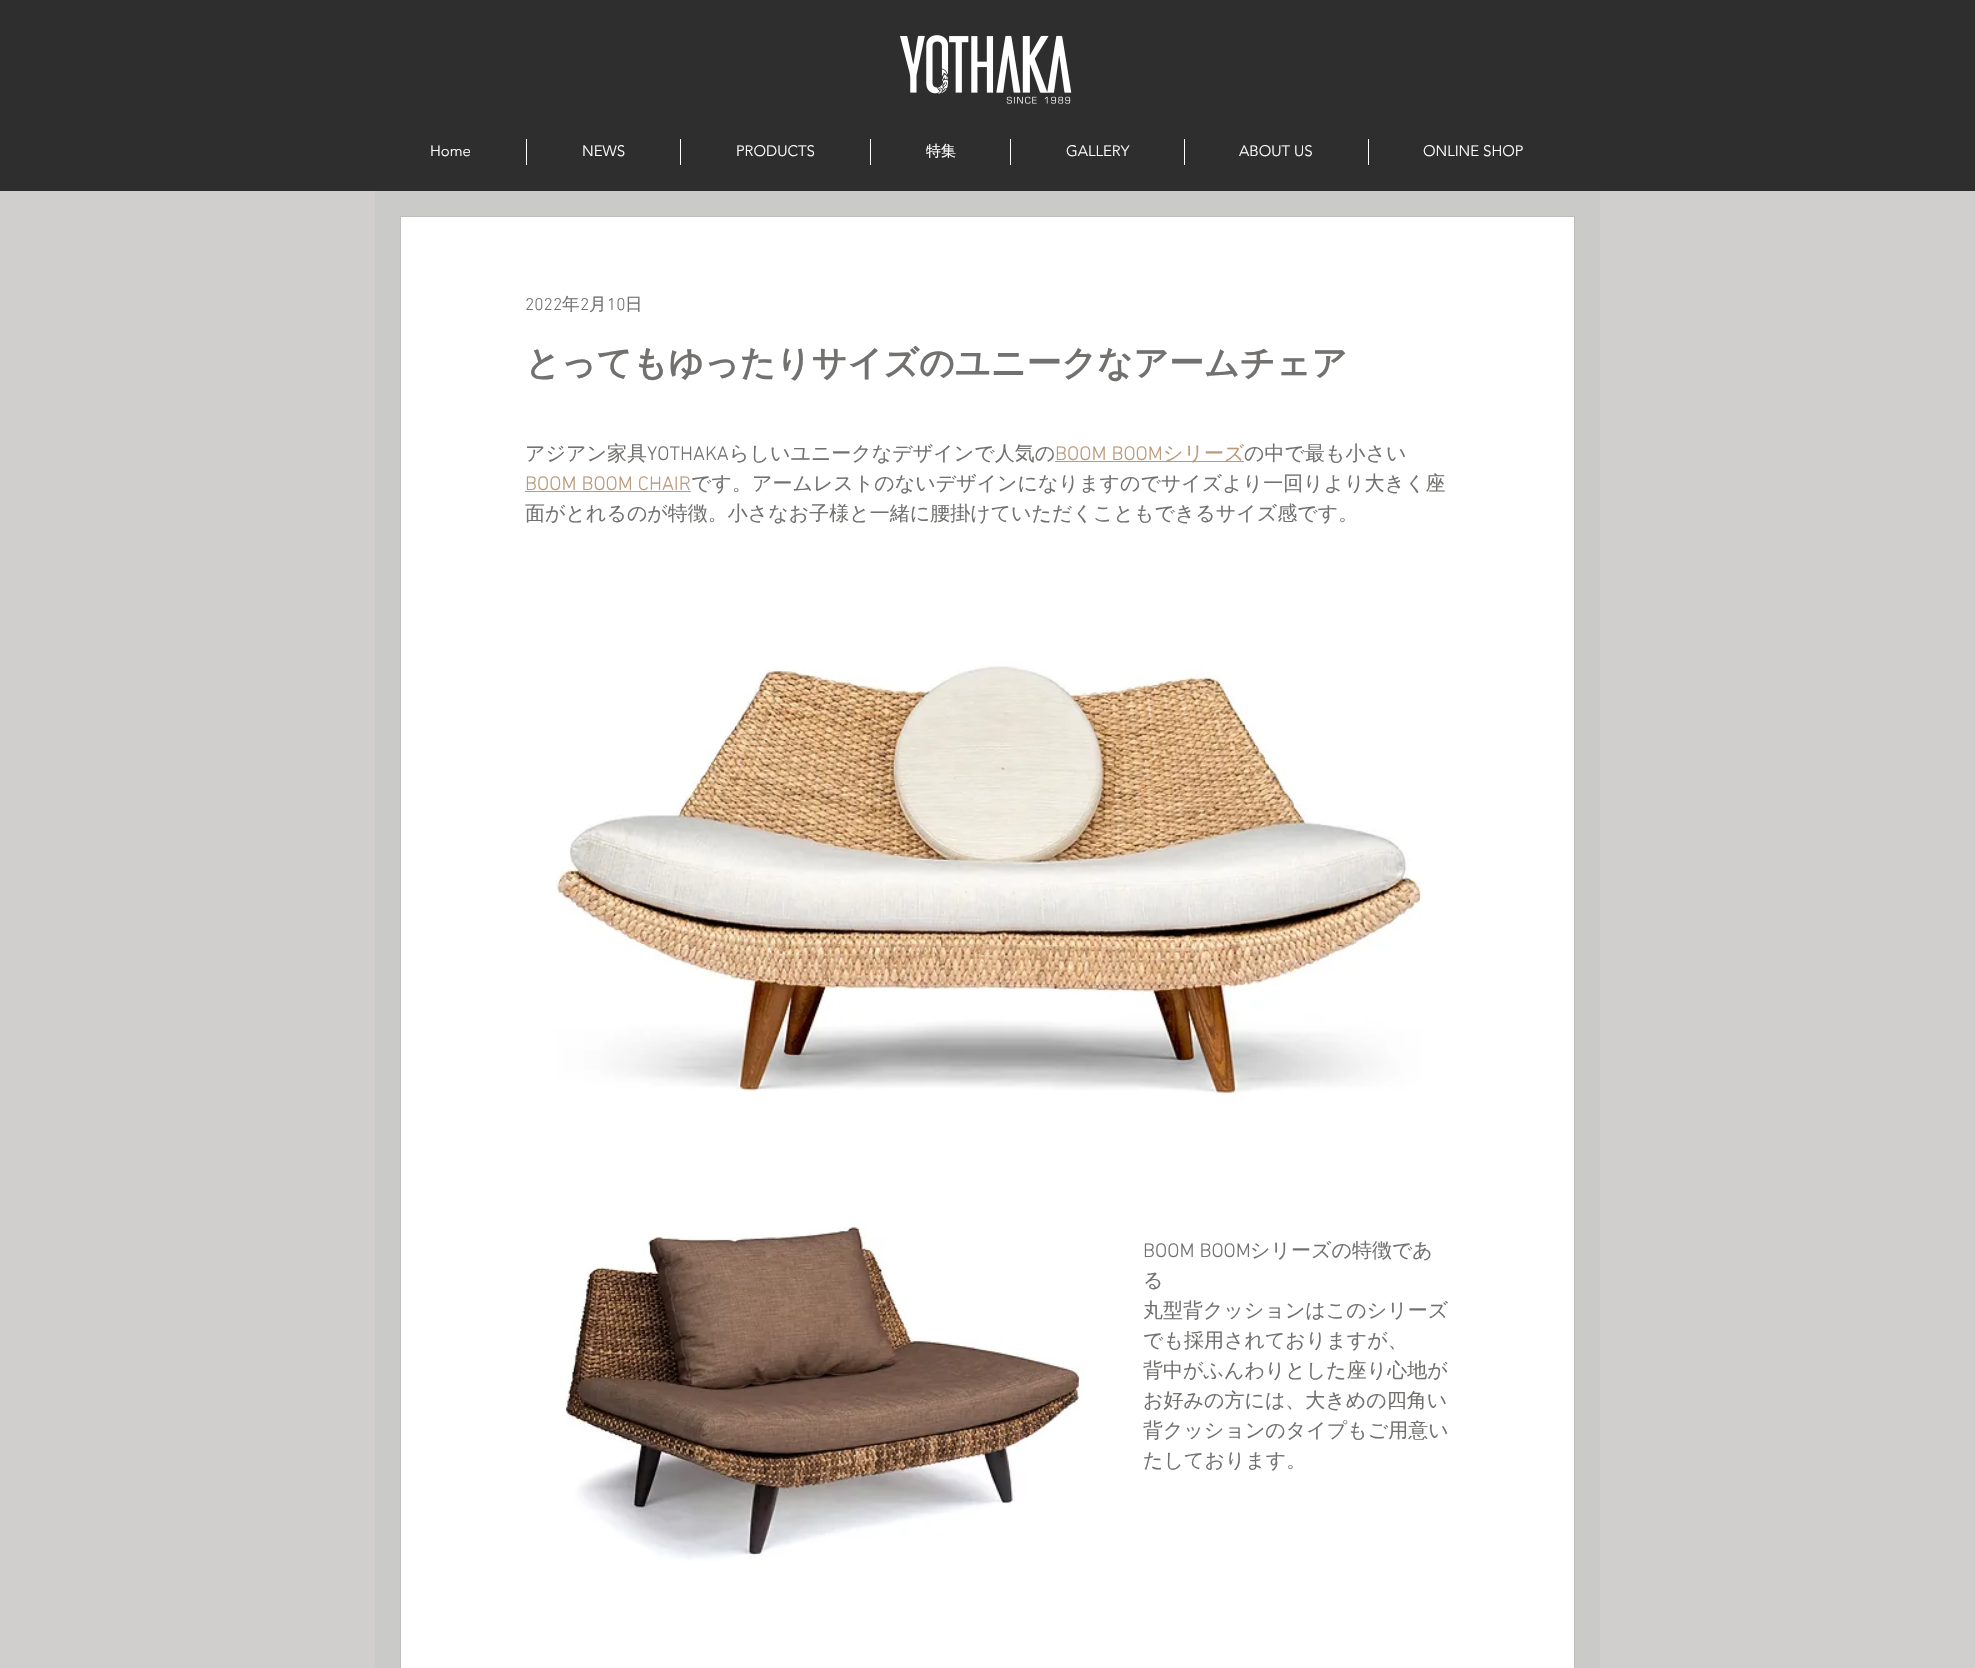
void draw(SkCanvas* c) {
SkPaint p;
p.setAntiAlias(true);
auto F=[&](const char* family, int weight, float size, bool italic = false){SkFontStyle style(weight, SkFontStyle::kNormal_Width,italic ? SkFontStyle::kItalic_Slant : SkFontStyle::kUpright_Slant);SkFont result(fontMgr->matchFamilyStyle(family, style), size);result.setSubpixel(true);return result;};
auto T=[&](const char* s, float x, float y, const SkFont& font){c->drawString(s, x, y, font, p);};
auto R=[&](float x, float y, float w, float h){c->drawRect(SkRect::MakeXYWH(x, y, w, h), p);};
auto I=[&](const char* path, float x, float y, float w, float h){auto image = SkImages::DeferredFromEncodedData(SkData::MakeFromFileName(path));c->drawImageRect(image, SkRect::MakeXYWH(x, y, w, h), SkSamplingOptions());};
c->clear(0xffd0cfcd);
p.setColor(0xff2f2e2e);
R(0,0,1975,191);
I("1.png",900,35,172,69);
auto f1 = F("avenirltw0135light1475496",300,15);
p.setColor(0xffffffff);
T("Home",430,156,f1);
R(526,139,1,26);
T("NEWS",582,156,f1);
R(680,139,1,26);
T("PRODUCTS",736,156,f1);
R(870,139,1,26);
auto f2 = F("WenQuanYi Zen Hei",500,15);
T("特集",926,156,f2);
R(1010,139,1,26);
T("GALLERY",1066,156,f1);
R(1184,139,1,26);
T("ABOUT US",1239,156,f1);
R(1368,139,1,26);
T("ONLINE SHOP",1423,156,f1);
p.setColor(0xffcacac9);
R(375,191,1225,1477);
p.setColor(0xffffffff);
c->drawRect(SkRect::MakeXYWH(400.5,216.5,1174,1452),p);
p.setStroke(true);
p.setStrokeWidth(1);
p.setColor(0xffbdbdbc);
c->drawRect(SkRect::MakeXYWH(400.5,216.5,1174,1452),p);
auto f3 = F("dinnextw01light",300,17.5);
p.setStroke(false);
p.setColor(0xff72716f);
T("2022",525,310,f3);
auto f4 = F("WenQuanYi Zen Hei",500,17.5);
T("年",562,310,f4);
T("2",580,310,f3);
T("月",589,310,f4);
T("10",607,310,f3);
T("日",625,310,f4);
auto f5 = F("WenQuanYi Zen Hei",700,35);
T("とってもゆったりサイズのユニークなアームチェア",525,375,f5);
auto f6 = F("WenQuanYi Zen Hei",500,20);
T("アジアン家具",525,460,f6);
auto f7 = F("dinnextw01light",300,20);
T("YOTHAKA",647,460,f7);
T("らしいユニークなデザインで人気の",729,460,f6);
p.setColor(0xffbc9979);
T("BOOM BOOM",1055,460,f7);
R(1055,461,189,1);
T("シリーズ",1163,460,f6);
p.setColor(0xff72716f);
T("の中で最も小さい",1244,460,f6);
p.setColor(0xffbc9979);
T("BOOM BOOM CHAIR",525,490,f7);
R(525,491,166,1);
p.setColor(0xff72716f);
T("です。アームレストのないデザインになりますのでサイズより一回りより大きく座",691,490,f6);
T("面がとれるのが特徴。小さなお子様と一緒に腰掛けていただくこともできるサイズ感です。",525,520,f6);
I("2.png",555,665,867,435);
I("3.png",565,1227,521,334);
T("BOOM BOOM",1143,1257,f7);
T("シリーズの特徴であ",1250,1257,f6);
T("る",1143,1287,f6);
T("丸型背クッションはこのシリーズ",1143,1317,f6);
T("でも採用されておりますが、",1143,1347,f6);
T("背中がふんわりとした座り心地が",1143,1377,f6);
T("お好みの方には、大きめの四角い",1143,1407,f6);
T("背クッションのタイプもご用意い",1143,1437,f6);
T("たしております。",1143,1467,f6);
}
